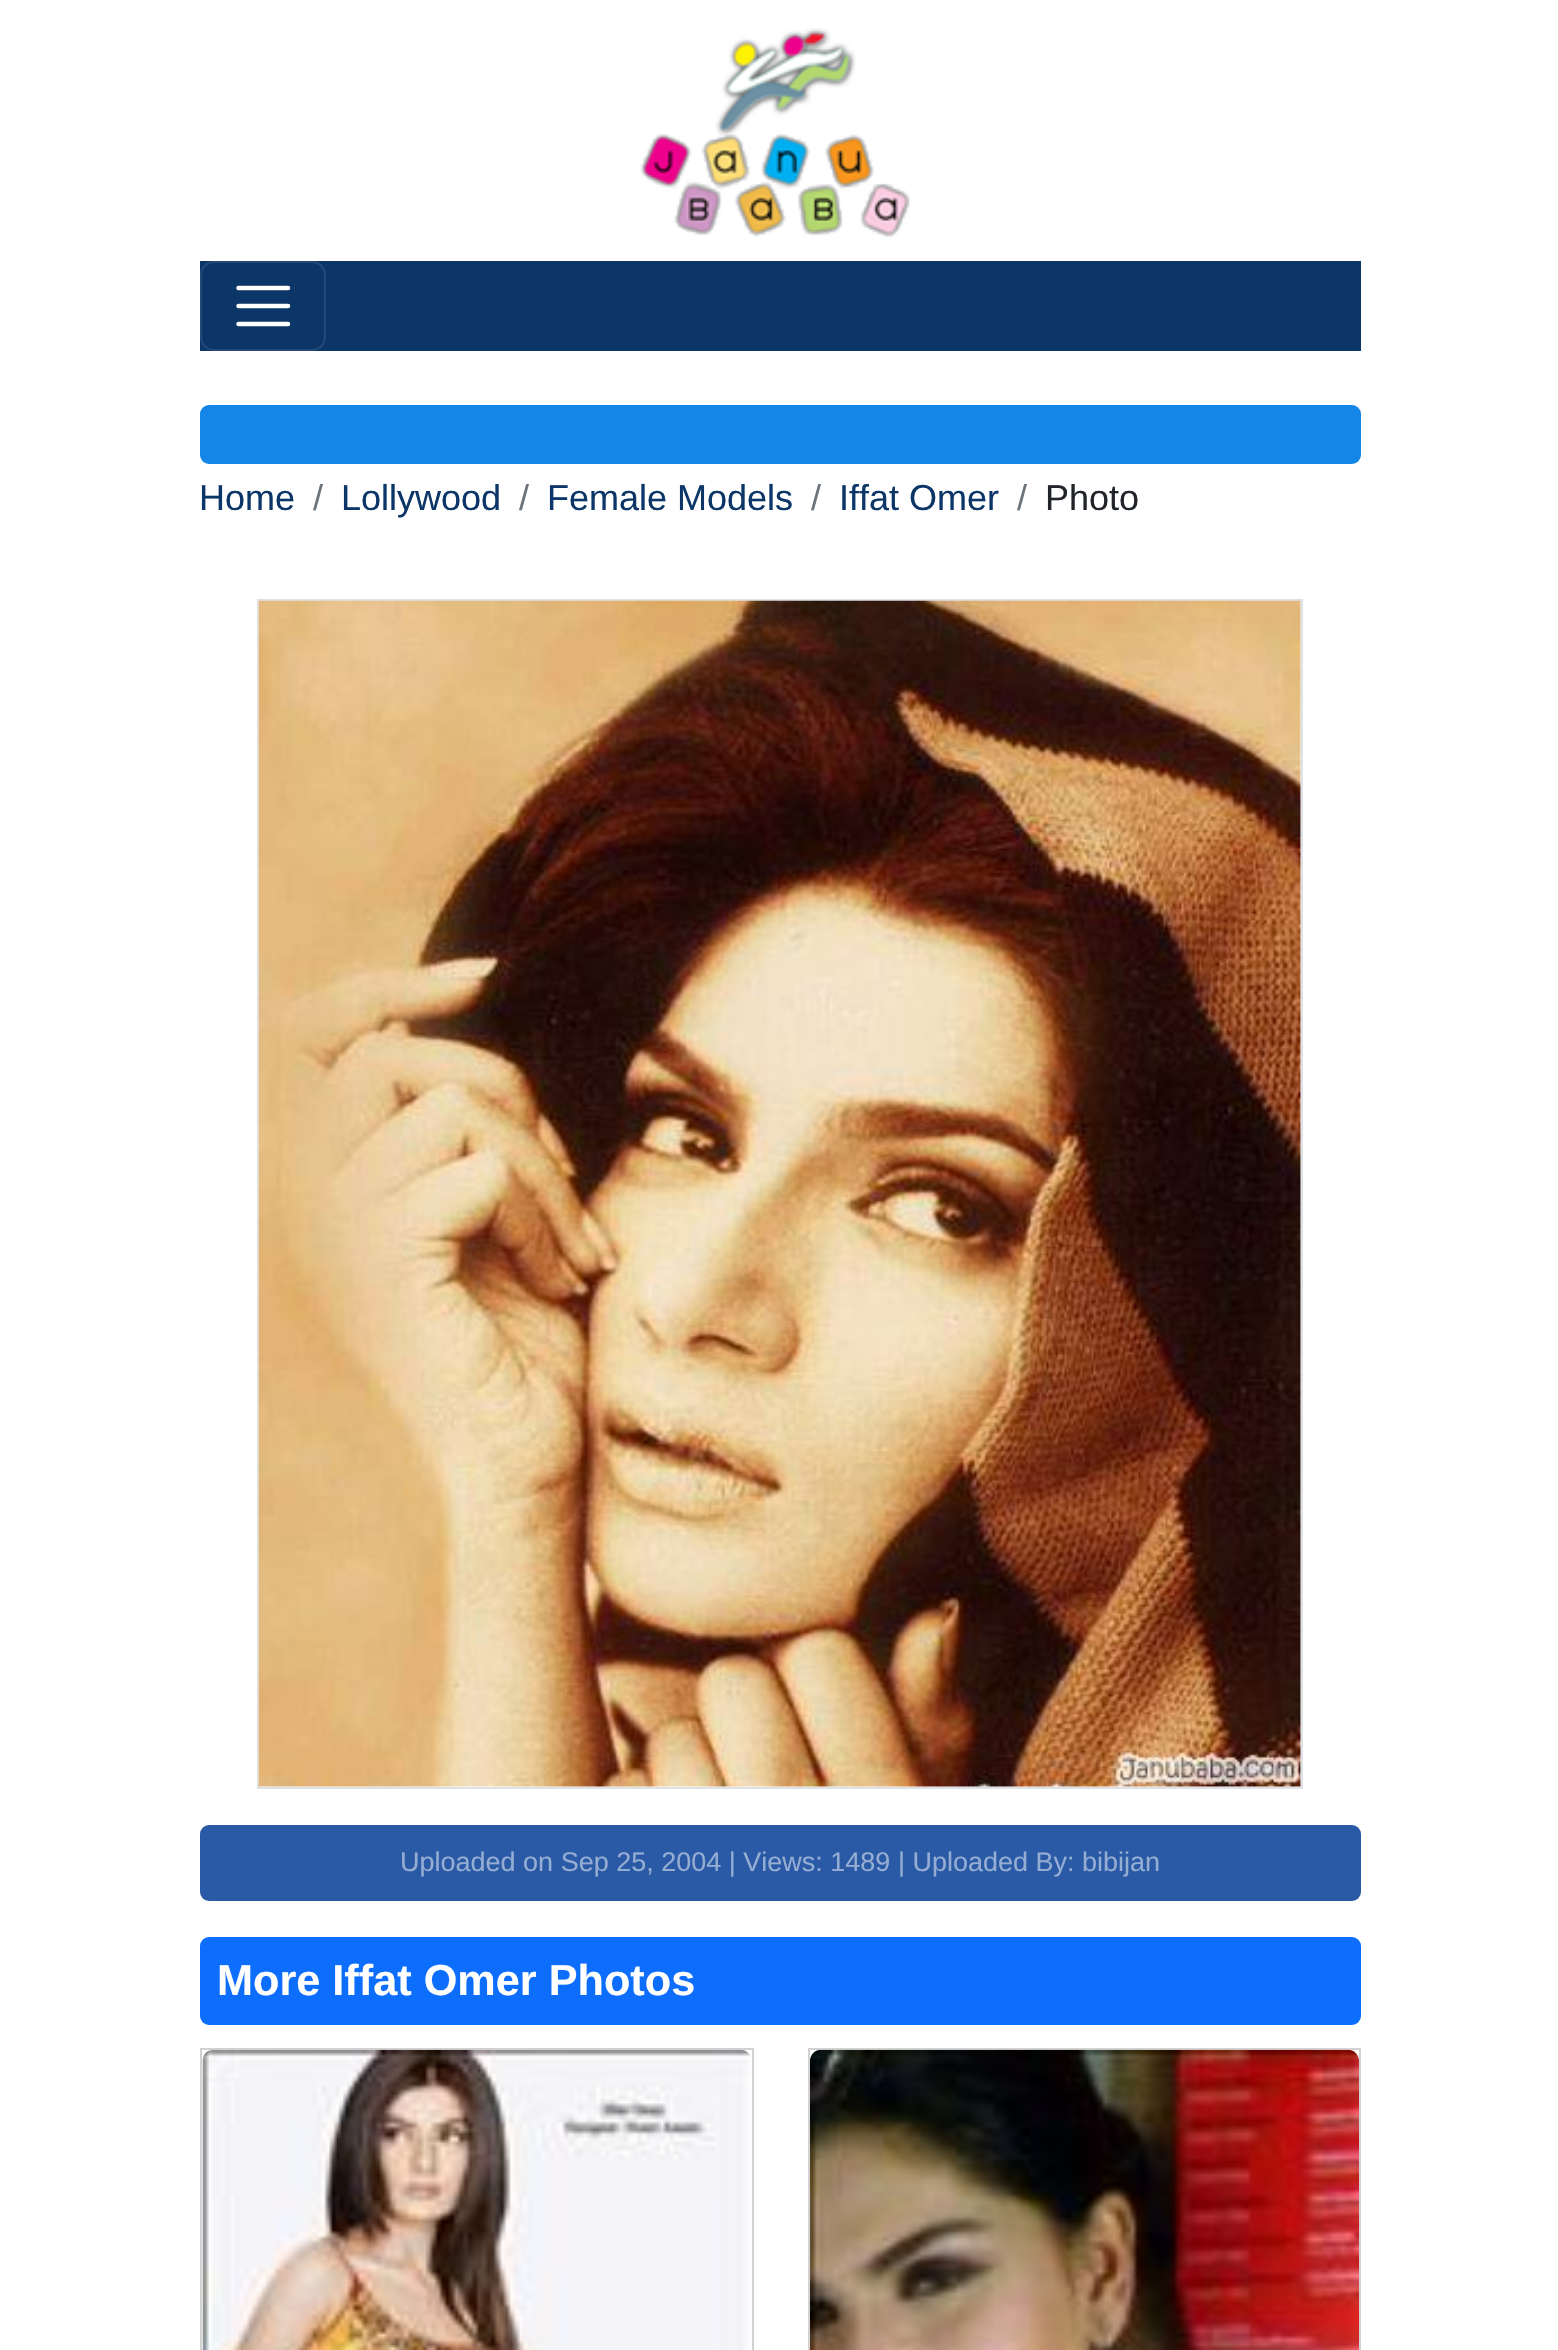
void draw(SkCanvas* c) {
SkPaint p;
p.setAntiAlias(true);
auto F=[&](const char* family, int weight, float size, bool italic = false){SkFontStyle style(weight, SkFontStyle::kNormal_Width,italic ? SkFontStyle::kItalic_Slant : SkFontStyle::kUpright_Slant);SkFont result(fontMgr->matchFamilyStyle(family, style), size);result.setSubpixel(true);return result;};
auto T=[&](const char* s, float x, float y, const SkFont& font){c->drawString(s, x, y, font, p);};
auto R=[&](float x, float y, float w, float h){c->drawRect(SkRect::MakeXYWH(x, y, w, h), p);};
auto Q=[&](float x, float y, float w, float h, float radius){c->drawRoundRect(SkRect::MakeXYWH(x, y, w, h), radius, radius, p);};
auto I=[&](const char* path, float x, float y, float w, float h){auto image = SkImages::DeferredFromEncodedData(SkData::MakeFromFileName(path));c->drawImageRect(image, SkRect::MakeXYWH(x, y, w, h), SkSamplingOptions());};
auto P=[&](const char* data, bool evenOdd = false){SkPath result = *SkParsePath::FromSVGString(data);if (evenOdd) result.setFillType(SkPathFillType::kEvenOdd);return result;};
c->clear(0xffffffff);
I("1.png",640,28,270,209);
p.setColor(0xff0b3667);
R(200,261,1161,90);
p.setStroke(true);
p.setStrokeWidth(2);
p.setColor(0xff234a76);
c->drawRoundRect(SkRect::MakeXYWH(201,262,124,88),13,13,p);
p.setStrokeWidth(4.5);
p.setStrokeCap(SkPaint::kRound_Cap);
p.setColor(0xffffffff);
c->drawPath(P("M238.5 288h49.5m-49.5 18h49.5m-49.5 18h49.5"),p);
p.setStroke(false);
p.setColor(0xff1386e7);
Q(200,405,1161,59,9);
auto f1 = F("Liberation Sans",400,36);
p.setColor(0xff0b3667);
T("Home",199,510,f1);
p.setColor(0xff6c757d);
T("/",313,510,f1);
p.setColor(0xff0b3667);
T("Lollywood",341,510,f1);
p.setColor(0xff6c757d);
T("/",519,510,f1);
p.setColor(0xff0b3667);
T("Female Models",547,510,f1);
p.setColor(0xff6c757d);
T("/",811,510,f1);
p.setColor(0xff0b3667);
T("Iffat Omer",839,510,f1);
p.setColor(0xff6c757d);
T("/",1017,510,f1);
p.setColor(0xff212529);
T("Photo",1045,510,f1);
p.setStroke(true);
p.setStrokeWidth(2);
p.setStrokeCap(SkPaint::kButt_Cap);
p.setColor(0xffdee2e6);
c->drawRect(SkRect::MakeXYWH(258,600,1044,1188),p);
I("2.png",258,600,1043,1187);
p.setStroke(false);
p.setColor(0xff2a5aa6);
Q(200,1825,1161,76,9);
auto f2 = F("Liberation Sans",400,27);
p.setColor(0xff95add3);
T("Uploaded on Sep 25, 2004 | Views: 1489 | Uploaded By: bibijan",400,1871,f2);
p.setColor(0xff0d6efd);
Q(200,1937,1161,88,9);
auto f3 = F("Liberation Sans",700,43.25);
p.setColor(0xffffffff);
T("More Iffat Omer Photos",217,1995,f3);
p.setStroke(true);
p.setColor(0xffd2d2d2);
c->drawRect(SkRect::MakeXYWH(201,2049,552,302),p);
I("3.png",202,2049,549,301);
c->drawRect(SkRect::MakeXYWH(809,2049,551,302),p);
I("4.png",810,2049,549,301);
}
